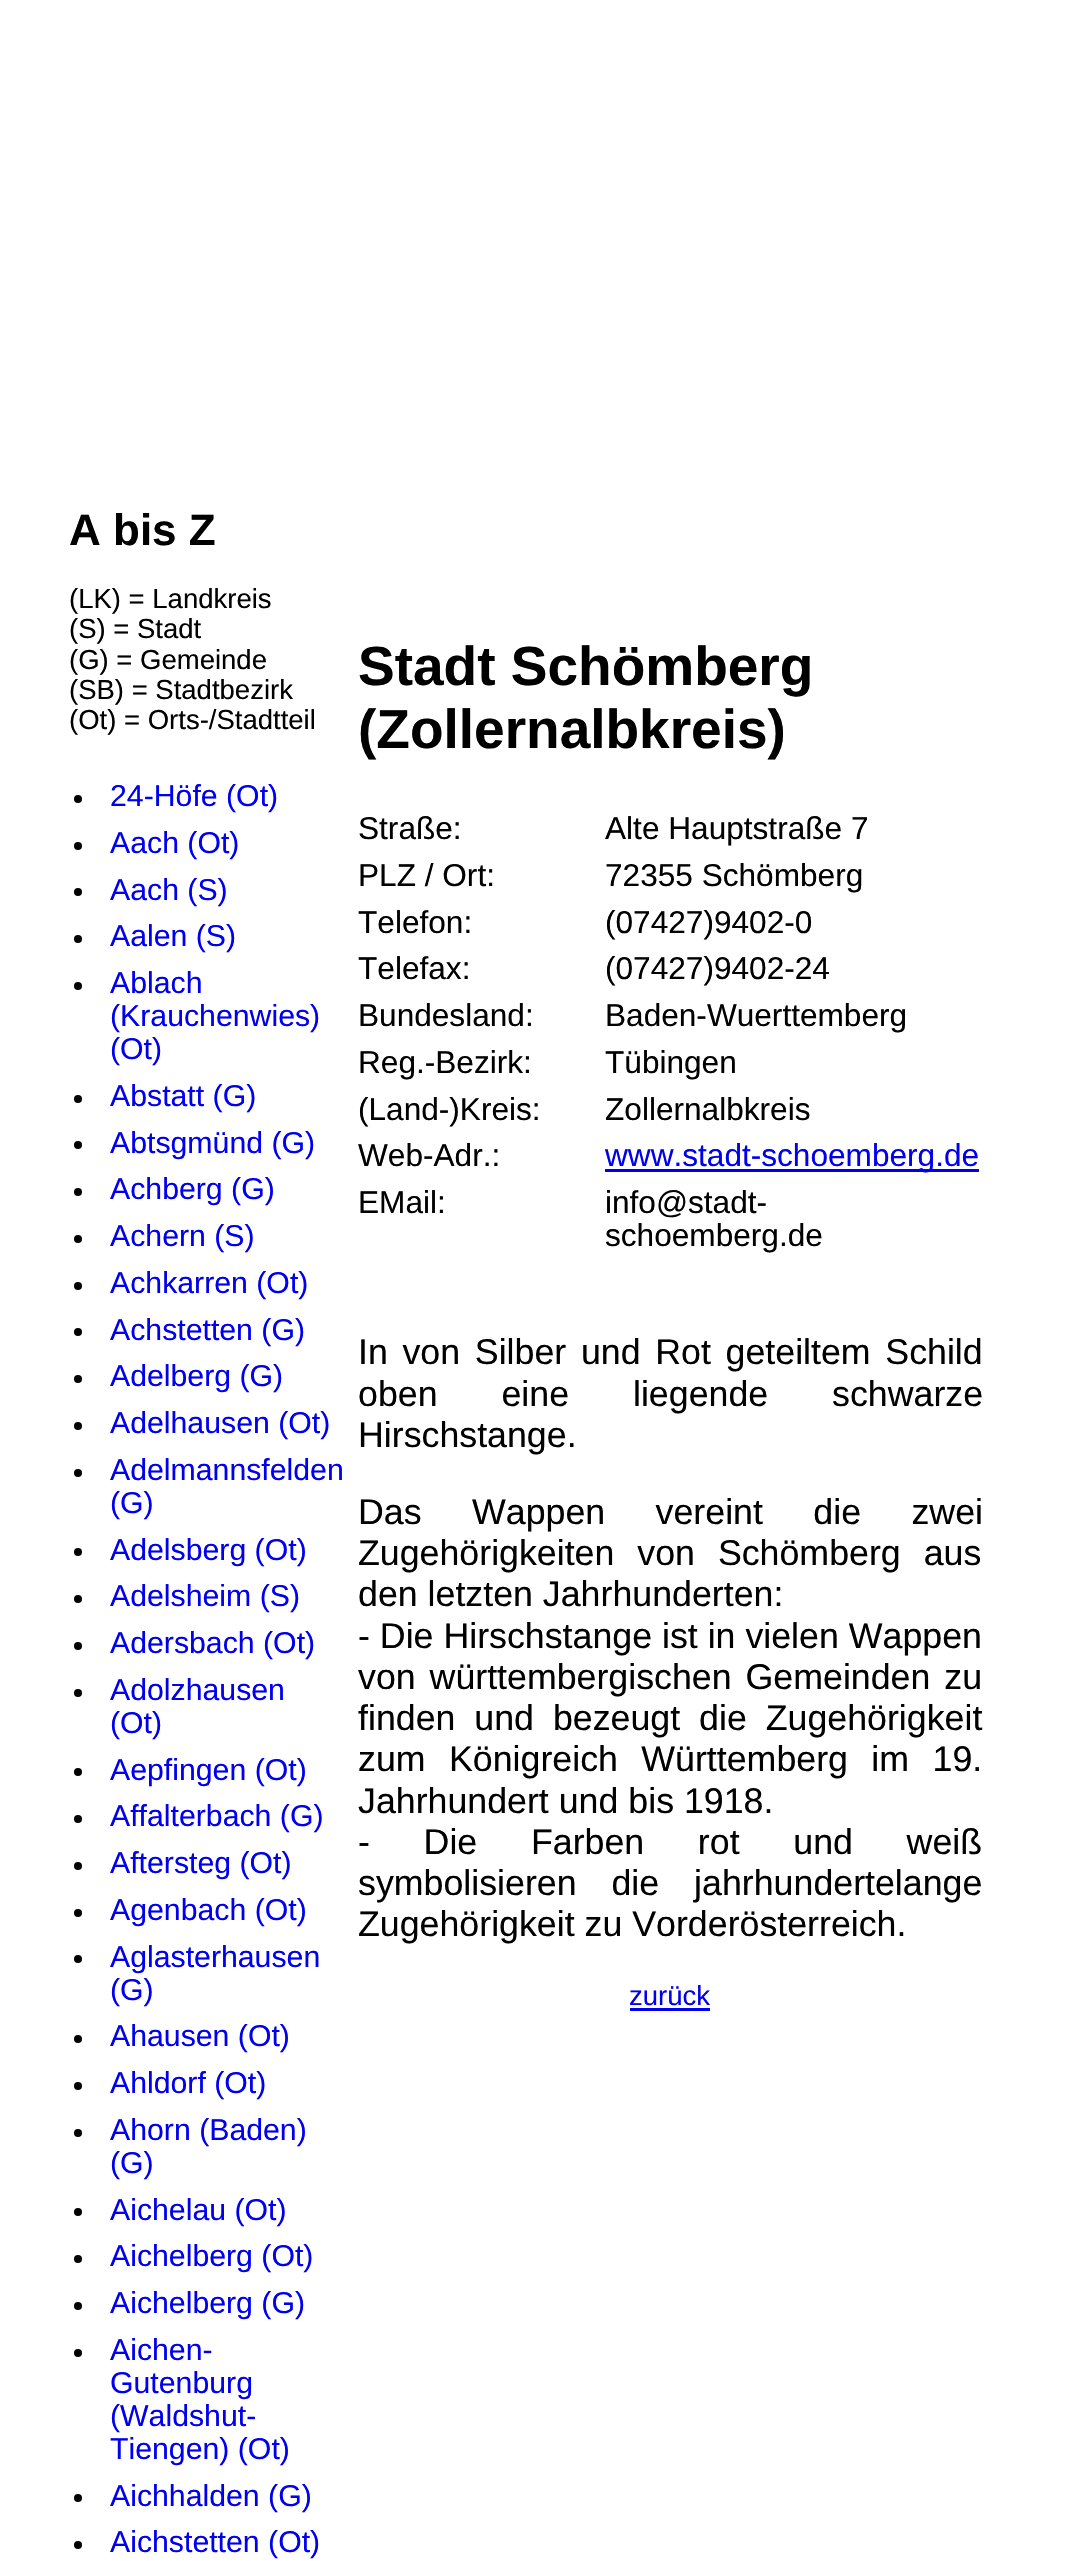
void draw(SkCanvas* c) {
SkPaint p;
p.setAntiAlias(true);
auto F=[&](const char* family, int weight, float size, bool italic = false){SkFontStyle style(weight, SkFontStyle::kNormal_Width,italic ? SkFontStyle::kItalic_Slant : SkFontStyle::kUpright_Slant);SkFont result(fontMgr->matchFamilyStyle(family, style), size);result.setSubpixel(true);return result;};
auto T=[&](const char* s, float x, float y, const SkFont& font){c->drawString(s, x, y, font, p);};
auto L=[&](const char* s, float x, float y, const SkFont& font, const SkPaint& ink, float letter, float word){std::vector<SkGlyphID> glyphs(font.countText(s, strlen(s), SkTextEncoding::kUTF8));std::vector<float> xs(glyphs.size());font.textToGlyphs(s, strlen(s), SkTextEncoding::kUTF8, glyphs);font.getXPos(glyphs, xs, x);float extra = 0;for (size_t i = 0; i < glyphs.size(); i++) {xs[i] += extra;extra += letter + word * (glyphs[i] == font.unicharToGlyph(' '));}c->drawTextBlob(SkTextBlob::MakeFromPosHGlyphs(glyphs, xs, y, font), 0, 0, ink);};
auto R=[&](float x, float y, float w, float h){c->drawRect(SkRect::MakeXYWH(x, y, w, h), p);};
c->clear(0xffffffff);
auto f1 = F("Liberation Sans",700,44);
p.setColor(0xff000000);
T("A bis Z",69,545,f1);
auto f2 = F("Liberation Sans",400,27.5);
T("(LK) = Landkreis",69,608,f2);
T("(S) = Stadt",69,638,f2);
T("(G) = Gemeinde",69,669,f2);
T("(SB) = Stadtbezirk",69,699,f2);
T("(Ot) = Orts-/Stadtteil",69,729,f2);
c->drawCircle(78,799,4,p);
auto f3 = F("Liberation Sans",400,30.25);
p.setColor(0xff0000ee);
T("24-Höfe (Ot)",110,806,f3);
p.setColor(0xff000000);
c->drawCircle(78,846,4,p);
p.setColor(0xff0000ee);
T("Aach (Ot)",110,853,f3);
p.setColor(0xff000000);
c->drawCircle(78,892,4,p);
p.setColor(0xff0000ee);
T("Aach (S)",110,900,f3);
p.setColor(0xff000000);
c->drawCircle(78,939,4,p);
p.setColor(0xff0000ee);
T("Aalen (S)",110,946,f3);
p.setColor(0xff000000);
c->drawCircle(78,986,4,p);
p.setColor(0xff0000ee);
T("Ablach",110,993,f3);
T("(Krauchenwies)",110,1026,f3);
T("(Ot)",110,1059,f3);
p.setColor(0xff000000);
c->drawCircle(78,1099,4,p);
p.setColor(0xff0000ee);
T("Abstatt (G)",110,1106,f3);
p.setColor(0xff000000);
c->drawCircle(78,1145,4,p);
p.setColor(0xff0000ee);
T("Abtsgmünd (G)",110,1153,f3);
p.setColor(0xff000000);
c->drawCircle(78,1192,4,p);
p.setColor(0xff0000ee);
T("Achberg (G)",110,1199,f3);
p.setColor(0xff000000);
c->drawCircle(78,1239,4,p);
p.setColor(0xff0000ee);
T("Achern (S)",110,1246,f3);
p.setColor(0xff000000);
c->drawCircle(78,1286,4,p);
p.setColor(0xff0000ee);
T("Achkarren (Ot)",110,1293,f3);
p.setColor(0xff000000);
c->drawCircle(78,1332,4,p);
p.setColor(0xff0000ee);
T("Achstetten (G)",110,1340,f3);
p.setColor(0xff000000);
c->drawCircle(78,1379,4,p);
p.setColor(0xff0000ee);
T("Adelberg (G)",110,1386,f3);
p.setColor(0xff000000);
c->drawCircle(78,1426,4,p);
p.setColor(0xff0000ee);
T("Adelhausen (Ot)",110,1433,f3);
p.setColor(0xff000000);
c->drawCircle(78,1473,4,p);
p.setColor(0xff0000ee);
T("Adelmannsfelden",110,1480,f3);
T("(G)",110,1513,f3);
p.setColor(0xff000000);
c->drawCircle(78,1552,4,p);
p.setColor(0xff0000ee);
T("Adelsberg (Ot)",110,1560,f3);
p.setColor(0xff000000);
c->drawCircle(78,1599,4,p);
p.setColor(0xff0000ee);
T("Adelsheim (S)",110,1606,f3);
p.setColor(0xff000000);
c->drawCircle(78,1646,4,p);
p.setColor(0xff0000ee);
T("Adersbach (Ot)",110,1653,f3);
p.setColor(0xff000000);
c->drawCircle(78,1693,4,p);
p.setColor(0xff0000ee);
T("Adolzhausen",110,1700,f3);
T("(Ot)",110,1733,f3);
p.setColor(0xff000000);
c->drawCircle(78,1772,4,p);
p.setColor(0xff0000ee);
T("Aepfingen (Ot)",110,1780,f3);
p.setColor(0xff000000);
c->drawCircle(78,1819,4,p);
p.setColor(0xff0000ee);
T("Affalterbach (G)",110,1826,f3);
p.setColor(0xff000000);
c->drawCircle(78,1866,4,p);
p.setColor(0xff0000ee);
T("Aftersteg (Ot)",110,1873,f3);
p.setColor(0xff000000);
c->drawCircle(78,1913,4,p);
p.setColor(0xff0000ee);
T("Agenbach (Ot)",110,1920,f3);
p.setColor(0xff000000);
c->drawCircle(78,1959,4,p);
p.setColor(0xff0000ee);
T("Aglasterhausen",110,1967,f3);
T("(G)",110,2000,f3);
p.setColor(0xff000000);
c->drawCircle(78,2039,4,p);
p.setColor(0xff0000ee);
T("Ahausen (Ot)",110,2046,f3);
p.setColor(0xff000000);
c->drawCircle(78,2086,4,p);
p.setColor(0xff0000ee);
T("Ahldorf (Ot)",110,2093,f3);
p.setColor(0xff000000);
c->drawCircle(78,2133,4,p);
p.setColor(0xff0000ee);
T("Ahorn (Baden)",110,2140,f3);
T("(G)",110,2173,f3);
p.setColor(0xff000000);
c->drawCircle(78,2212,4,p);
p.setColor(0xff0000ee);
T("Aichelau (Ot)",110,2220,f3);
p.setColor(0xff000000);
c->drawCircle(78,2259,4,p);
p.setColor(0xff0000ee);
T("Aichelberg (Ot)",110,2266,f3);
p.setColor(0xff000000);
c->drawCircle(78,2306,4,p);
p.setColor(0xff0000ee);
T("Aichelberg (G)",110,2313,f3);
p.setColor(0xff000000);
c->drawCircle(78,2353,4,p);
p.setColor(0xff0000ee);
T("Aichen-",110,2360,f3);
T("Gutenburg",110,2393,f3);
T("(Waldshut-",110,2426,f3);
T("Tiengen) (Ot)",110,2459,f3);
p.setColor(0xff000000);
c->drawCircle(78,2498,4,p);
p.setColor(0xff0000ee);
T("Aichhalden (G)",110,2506,f3);
p.setColor(0xff000000);
c->drawCircle(78,2545,4,p);
p.setColor(0xff0000ee);
T("Aichstetten (Ot)",110,2552,f3);
auto f4 = F("Liberation Sans",700,55);
p.setColor(0xff000000);
T("Stadt Schömberg",358,685,f4);
T("(Zollernalbkreis)",358,748,f4);
auto f5 = F("Liberation Sans",400,31.6);
T("Straße:",358,839,f5);
T("Alte Hauptstraße 7",605,839,f5);
T("PLZ / Ort:",358,886,f5);
T("72355 Schömberg",605,886,f5);
T("Telefon:",358,933,f5);
T("(07427)9402-0",605,933,f5);
T("Telefax:",358,979,f5);
T("(07427)9402-24",605,979,f5);
T("Bundesland:",358,1026,f5);
T("Baden-Wuerttemberg",605,1026,f5);
T("Reg.-Bezirk:",358,1073,f5);
T("Tübingen",605,1073,f5);
T("(Land-)Kreis:",358,1120,f5);
T("Zollernalbkreis",605,1120,f5);
T("Web-Adr.:",358,1166,f5);
p.setColor(0xff0000ee);
R(605,1169,374,3);
T("www.stadt-schoemberg.de",605,1166,f5);
p.setColor(0xff000000);
T("EMail:",358,1213,f5);
T("info@stadt-",605,1213,f5);
T("schoemberg.de",605,1246,f5);
auto f6 = F("Liberation Sans",400,35.75);
L("In von Silber und Rot geteiltem Schild",358,1364,f6,p,0,4.75);
L("oben eine liegende schwarze",358,1406,f6,p,0,54);
T("Hirschstange.",358,1447,f6);
L("Das Wappen vereint die zwei",358,1524,f6,p,0,40.5);
L("Zugehörigkeiten von Schömberg aus",358,1565,f6,p,0,13);
T("den letzten Jahrhunderten:",358,1606,f6);
T("- Die Hirschstange ist in vielen Wappen",358,1648,f6);
L("von württembergischen Gemeinden zu",358,1689,f6,p,0,4);
L("finden und bezeugt die Zugehörigkeit",358,1730,f6,p,0,9);
L("zum Königreich Württemberg im 19.",358,1771,f6,p,0,13.5);
T("Jahrhundert und bis 1918.",358,1813,f6);
L("- Die Farben rot und weiß",358,1854,f6,p,0,43.75);
L("symbolisieren die jahrhundertelange",358,1895,f6,p,0,25);
T("Zugehörigkeit zu Vorderösterreich.",358,1936,f6);
p.setColor(0xff0000ee);
T("zurück",629,2005,f2);
R(630,2008,80,3);
}
